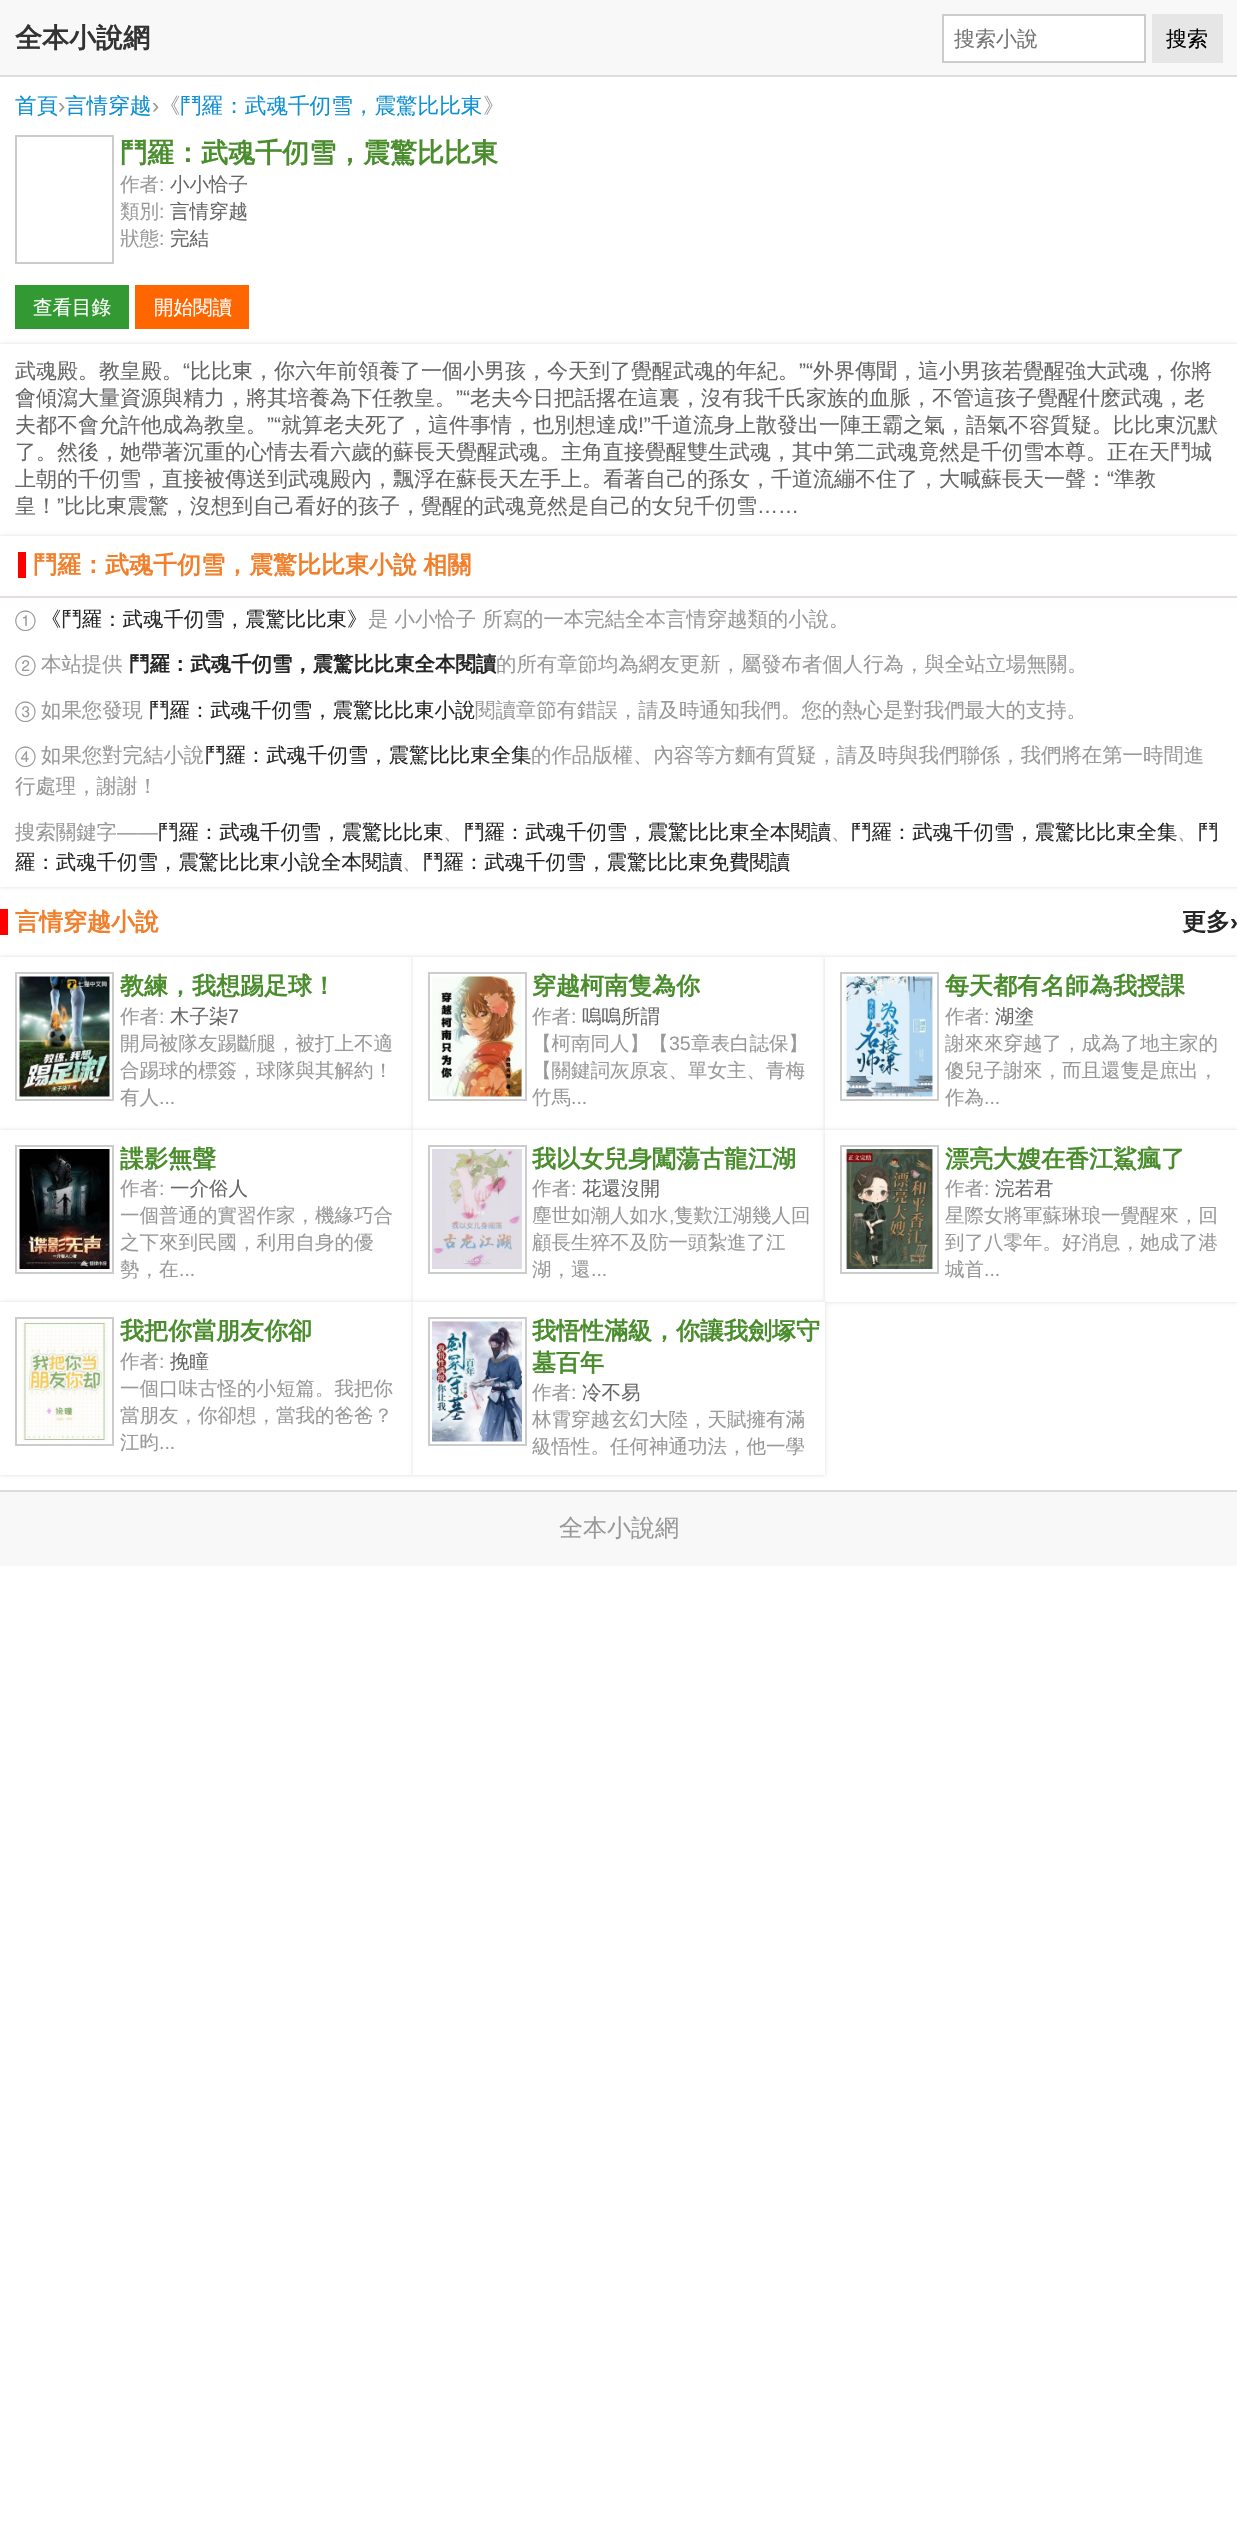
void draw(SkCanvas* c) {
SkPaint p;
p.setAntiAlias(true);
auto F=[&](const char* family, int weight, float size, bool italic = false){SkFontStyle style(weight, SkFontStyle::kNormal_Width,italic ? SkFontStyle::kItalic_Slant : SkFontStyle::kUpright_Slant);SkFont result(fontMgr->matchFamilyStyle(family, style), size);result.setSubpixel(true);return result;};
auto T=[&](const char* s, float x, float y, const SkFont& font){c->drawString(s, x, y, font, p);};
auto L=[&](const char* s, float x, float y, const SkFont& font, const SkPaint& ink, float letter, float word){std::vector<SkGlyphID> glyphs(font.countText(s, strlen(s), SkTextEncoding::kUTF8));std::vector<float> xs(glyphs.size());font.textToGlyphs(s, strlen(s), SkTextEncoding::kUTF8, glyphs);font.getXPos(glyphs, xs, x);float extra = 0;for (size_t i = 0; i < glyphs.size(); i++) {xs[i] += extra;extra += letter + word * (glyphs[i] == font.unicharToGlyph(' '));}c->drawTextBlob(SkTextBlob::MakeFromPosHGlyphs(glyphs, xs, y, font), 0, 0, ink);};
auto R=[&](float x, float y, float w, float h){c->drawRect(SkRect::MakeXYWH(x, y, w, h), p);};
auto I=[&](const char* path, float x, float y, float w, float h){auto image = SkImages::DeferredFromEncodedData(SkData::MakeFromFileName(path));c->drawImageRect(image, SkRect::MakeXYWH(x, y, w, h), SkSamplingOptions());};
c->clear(0xffffffff);
p.setColor(0xfff8f8f8);
R(0,0,1237,75);
p.setColor(0xffdddddd);
R(0,75,1237,2);
auto f1 = F("WenQuanYi Zen Hei",700,27);
p.setColor(0xff333333);
T("全本小說網",15,47,f1);
p.setColor(0xffffffff);
c->drawRect(SkRect::MakeXYWH(943,15,202,47),p);
p.setStroke(true);
p.setStrokeWidth(2);
p.setColor(0xffcccccc);
c->drawRect(SkRect::MakeXYWH(943,15,202,47),p);
auto f2 = F("WenQuanYi Zen Hei",500,21);
p.setStroke(false);
p.setColor(0xff757575);
T("搜索小說",954,46,f2);
p.setColor(0xffe6e6e6);
R(1152,14,71,49);
p.setColor(0xff000000);
T("搜索",1166,46,f2);
auto f3 = F("WenQuanYi Zen Hei",500,21.6);
p.setColor(0xff0e90d2);
T("首頁",15,113,f3);
auto f4 = F("Liberation Sans",400,21.6);
p.setColor(0xff999999);
T("›",58,113,f4);
p.setColor(0xff0e90d2);
T("言情穿越",65,113,f3);
p.setColor(0xff999999);
T("›",152,113,f4);
T("《",159,113,f3);
p.setColor(0xff0e90d2);
T("鬥羅：武魂千仞雪，震驚比比東",180,113,f3);
p.setColor(0xff999999);
T("》",483,113,f3);
p.setStroke(true);
p.setColor(0xffcccccc);
c->drawRect(SkRect::MakeXYWH(16,136,97,127),p);
p.setStroke(false);
p.setColor(0xff4a8d2d);
T("鬥羅：武魂千仞雪，震驚比比東",120,162,f1);
auto f5 = F("WenQuanYi Zen Hei",500,19.5);
p.setColor(0xff999999);
T("作者",120,191,f5);
auto f6 = F("Liberation Sans",400,19.5);
T(":",159,191,f6);
p.setColor(0xff666666);
T("小小恰子",170,191,f5);
p.setColor(0xff999999);
T("類別",120,218,f5);
T(":",159,218,f6);
p.setColor(0xff666666);
T("言情穿越",170,218,f5);
p.setColor(0xff999999);
T("狀態",120,245,f5);
T(":",159,245,f6);
p.setColor(0xff666666);
T("完結",170,245,f5);
p.setColor(0xff339933);
R(15,285,114,44);
p.setColor(0xffffffff);
T("查看目錄",33,314,f5);
p.setColor(0xffff6600);
R(135,285,114,44);
p.setColor(0xffffffff);
T("開始閱讀",154,314,f5);
p.setColor(0xffdddddd);
p.setMaskFilter(SkMaskFilter::MakeBlur(kNormal_SkBlurStyle, 2));
c->drawRect(SkRect::MakeXYWH(0,344,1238,192),p);
p.setMaskFilter(nullptr);
p.setColor(0xffffffff);
R(0,344,1237,192);
p.setColor(0xff666666);
T("武魂殿。教皇殿。",15,378,f2);
auto f7 = F("Liberation Sans",400,21);
T("“",183,378,f7);
T("比比東，你六年前領養了一個小男孩，今天到了覺醒武魂的年紀。",190,378,f2);
T("”“",799,378,f7);
T("外界傳聞，這小男孩若覺醒強大武魂，你將",813,378,f2);
T("會傾瀉大量資源與精力，將其培養為下任教皇。",15,405,f2);
T("”“",456,405,f7);
T("老夫今日把話撂在這裏，沒有我千氏家族的血脈，不管這孩子覺醒什麽武魂，老",470,405,f2);
T("夫都不會允許他成為教皇。",15,432,f2);
T("”“",267,432,f7);
T("就算老夫死了，這件事情，也別想達成",281,432,f2);
T("!”",638,432,f7);
T("千道流身上散發出一陣王霸之氣，語氣不容質疑。比比東沉默",651,432,f2);
T("了。然後，她帶著沉重的心情去看六歲的蘇長天覺醒武魂。主角直接覺醒雙生武魂，其中第二武魂竟然是千仞雪本尊。正在天鬥城",15,459,f2);
T("上朝的千仞雪，直接被傳送到武魂殿內，飄浮在蘇長天左手上。看著自己的孫女，千道流繃不住了，大喊蘇長天一聲：",15,486,f2);
T("“",1107,486,f7);
T("準教",1114,486,f2);
T("皇！",15,513,f2);
T("”",57,513,f7);
T("比比東震驚，沒想到自己看好的孩子，覺醒的武魂竟然是自己的女兒千仞雪",64,513,f2);
T("……",757,513,f7);
p.setColor(0xffdddddd);
p.setMaskFilter(SkMaskFilter::MakeBlur(kNormal_SkBlurStyle, 2));
c->drawRect(SkRect::MakeXYWH(0,536,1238,351),p);
p.setMaskFilter(nullptr);
p.setColor(0xffffffff);
R(0,536,1237,351);
p.setColor(0xffe3dddc);
R(0,596,1237,2);
p.setColor(0xffff0000);
R(18,552,8,26);
auto f8 = F("WenQuanYi Zen Hei",700,24);
p.setColor(0xfff17f2c);
L("鬥羅：武魂千仞雪，震驚比比東小說 相關",33,573,f8,p,0,-1);
auto f9 = F("FreeSans",400,20.4);
p.setColor(0xff999999);
T("①",15,626,f9);
auto f10 = F("WenQuanYi Zen Hei",500,20.4);
p.setColor(0xff262626);
T("《鬥羅：武魂千仞雪，震驚比比東》",41,626,f10);
p.setColor(0xff999999);
T("是 小小恰子 所寫的一本完結全本言情穿越類的小說。",368,626,f10);
T("②",15,671,f9);
T("本站提供",41,671,f10);
auto f11 = F("WenQuanYi Zen Hei",700,20.4);
p.setColor(0xff262626);
T("鬥羅：武魂千仞雪，震驚比比東全本閱讀",129,671,f11);
p.setColor(0xff999999);
T("的所有章節均為網友更新，屬發布者個人行為，與全站立場無關。",496,671,f10);
T("③",15,717,f9);
T("如果您發現",41,717,f10);
p.setColor(0xff262626);
T("鬥羅：武魂千仞雪，震驚比比東小說",149,717,f10);
p.setColor(0xff999999);
T("閱讀章節有錯誤，請及時通知我們。您的熱心是對我們最大的支持。",475,717,f10);
T("④",15,762,f9);
T("如果您對完結小說",41,762,f10);
p.setColor(0xff262626);
T("鬥羅：武魂千仞雪，震驚比比東全集",205,762,f10);
p.setColor(0xff999999);
T("的作品版權、內容等方麵有質疑，請及時與我們聯係，我們將在第一時間進",531,762,f10);
T("行處理，謝謝！",15,793,f10);
T("搜索關鍵字",15,839,f10);
auto f12 = F("Liberation Sans",400,20.4);
T("——",117,839,f12);
p.setColor(0xff262626);
T("鬥羅：武魂千仞雪，震驚比比東",158,839,f10);
T("鬥羅：武魂千仞雪，震驚比比東全本閱讀",464,839,f10);
T("鬥羅：武魂千仞雪，震驚比比東全集",851,839,f10);
T("鬥",1198,839,f10);
p.setColor(0xff999999);
T("、",443,839,f10);
T("、",831,839,f10);
T("、",1177,839,f10);
p.setColor(0xff262626);
T("羅：武魂千仞雪，震驚比比東小說全本閱讀",15,869,f10);
p.setColor(0xff999999);
T("、",402,869,f10);
p.setColor(0xff262626);
T("鬥羅：武魂千仞雪，震驚比比東免費閱讀",423,869,f10);
p.setColor(0xffff0000);
R(0,909,8,26);
p.setColor(0xfff17f2c);
T("言情穿越小說",15,930,f8);
p.setColor(0xff262626);
T("更多",1182,930,f8);
auto f13 = F("Liberation Sans",700,24);
T("›",1230,930,f13);
p.setColor(0xffdddddd);
p.setMaskFilter(SkMaskFilter::MakeBlur(kNormal_SkBlurStyle, 2));
c->drawRect(SkRect::MakeXYWH(0,957,413,173),p);
p.setMaskFilter(nullptr);
p.setColor(0xffffffff);
R(0,957,413,173);
p.setStroke(true);
p.setColor(0xffcccccc);
c->drawRect(SkRect::MakeXYWH(16,973,97,127),p);
I("1.png",19,976,91,121);
p.setStroke(false);
p.setColor(0xff4a8d2d);
T("教練，我想踢足球！",120,994,f8);
p.setColor(0xff999999);
T("作者",120,1023,f5);
T(":",159,1023,f6);
p.setColor(0xff666666);
T("木子柒",170,1023,f5);
T("7",228,1023,f6);
p.setColor(0xff999999);
T("開局被隊友踢斷腿，被打上不適",120,1050,f5);
T("合踢球的標簽，球隊與其解約！",120,1077,f5);
T("有人",120,1104,f5);
T("...",159,1104,f6);
p.setColor(0xffdddddd);
p.setMaskFilter(SkMaskFilter::MakeBlur(kNormal_SkBlurStyle, 2));
c->drawRect(SkRect::MakeXYWH(413,957,412,173),p);
p.setMaskFilter(nullptr);
p.setColor(0xffffffff);
R(413,957,412,173);
p.setStroke(true);
p.setColor(0xffcccccc);
c->drawRect(SkRect::MakeXYWH(429,973,97,127),p);
I("2.png",432,976,90,121);
p.setStroke(false);
p.setColor(0xff4a8d2d);
T("穿越柯南隻為你",532,994,f8);
p.setColor(0xff999999);
T("作者",532,1023,f5);
T(":",571,1023,f6);
p.setColor(0xff666666);
T("嗚嗚所謂",582,1023,f5);
p.setColor(0xff999999);
T("【柯南同人】【",532,1050,f5);
T("35",669,1050,f6);
T("章表白誌保】",691,1050,f5);
T("【關鍵詞灰原哀、單女主、青梅",532,1077,f5);
T("竹馬",532,1104,f5);
T("...",571,1104,f6);
p.setColor(0xffdddddd);
p.setMaskFilter(SkMaskFilter::MakeBlur(kNormal_SkBlurStyle, 2));
c->drawRect(SkRect::MakeXYWH(825,957,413,173),p);
p.setMaskFilter(nullptr);
p.setColor(0xffffffff);
R(825,957,412,173);
p.setStroke(true);
p.setColor(0xffcccccc);
c->drawRect(SkRect::MakeXYWH(841,973,97,127),p);
I("3.png",844,976,90,121);
p.setStroke(false);
p.setColor(0xff4a8d2d);
T("每天都有名師為我授課",945,994,f8);
p.setColor(0xff999999);
T("作者",945,1023,f5);
T(":",984,1023,f6);
p.setColor(0xff666666);
T("湖塗",995,1023,f5);
p.setColor(0xff999999);
T("謝來來穿越了，成為了地主家的",945,1050,f5);
T("傻兒子謝來，而且還隻是庶出，",945,1077,f5);
T("作為",945,1104,f5);
T("...",984,1104,f6);
p.setColor(0xffdddddd);
p.setMaskFilter(SkMaskFilter::MakeBlur(kNormal_SkBlurStyle, 2));
c->drawRect(SkRect::MakeXYWH(0,1130,413,172),p);
p.setMaskFilter(nullptr);
p.setColor(0xffffffff);
R(0,1130,413,172);
p.setStroke(true);
p.setColor(0xffcccccc);
c->drawRect(SkRect::MakeXYWH(16,1146,97,127),p);
I("4.png",19,1149,91,120);
p.setStroke(false);
p.setColor(0xff4a8d2d);
T("諜影無聲",120,1167,f8);
p.setColor(0xff999999);
T("作者",120,1195,f5);
T(":",159,1195,f6);
p.setColor(0xff666666);
T("一介俗人",170,1195,f5);
p.setColor(0xff999999);
T("一個普通的實習作家，機緣巧合",120,1222,f5);
T("之下來到民國，利用自身的優",120,1249,f5);
T("勢，在",120,1276,f5);
T("...",179,1276,f6);
p.setColor(0xffdddddd);
p.setMaskFilter(SkMaskFilter::MakeBlur(kNormal_SkBlurStyle, 2));
c->drawRect(SkRect::MakeXYWH(413,1130,412,172),p);
p.setMaskFilter(nullptr);
p.setColor(0xffffffff);
R(413,1130,412,172);
p.setStroke(true);
p.setColor(0xffcccccc);
c->drawRect(SkRect::MakeXYWH(429,1146,97,127),p);
I("5.png",432,1149,90,120);
p.setStroke(false);
p.setColor(0xff4a8d2d);
T("我以女兒身闖蕩古龍江湖",532,1167,f8);
p.setColor(0xff999999);
T("作者",532,1195,f5);
T(":",571,1195,f6);
p.setColor(0xff666666);
T("花還沒開",582,1195,f5);
p.setColor(0xff999999);
T("塵世如潮人如水",532,1222,f5);
T(",",669,1222,f6);
T("隻歎江湖幾人回",674,1222,f5);
T("顧長生猝不及防一頭紮進了江",532,1249,f5);
T("湖，還",532,1276,f5);
T("...",591,1276,f6);
p.setColor(0xffdddddd);
p.setMaskFilter(SkMaskFilter::MakeBlur(kNormal_SkBlurStyle, 2));
c->drawRect(SkRect::MakeXYWH(825,1130,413,172),p);
p.setMaskFilter(nullptr);
p.setColor(0xffffffff);
R(825,1130,412,172);
p.setStroke(true);
p.setColor(0xffcccccc);
c->drawRect(SkRect::MakeXYWH(841,1146,97,127),p);
I("6.png",844,1149,90,120);
p.setStroke(false);
p.setColor(0xff4a8d2d);
T("漂亮大嫂在香江鯊瘋了",945,1167,f8);
p.setColor(0xff999999);
T("作者",945,1195,f5);
T(":",984,1195,f6);
p.setColor(0xff666666);
T("浣若君",995,1195,f5);
p.setColor(0xff999999);
T("星際女將軍蘇琳琅一覺醒來，回",945,1222,f5);
T("到了八零年。好消息，她成了港",945,1249,f5);
T("城首",945,1276,f5);
T("...",984,1276,f6);
p.setColor(0xffdddddd);
p.setMaskFilter(SkMaskFilter::MakeBlur(kNormal_SkBlurStyle, 2));
c->drawRect(SkRect::MakeXYWH(0,1302,413,173),p);
p.setMaskFilter(nullptr);
p.setColor(0xffffffff);
R(0,1302,413,173);
p.setStroke(true);
p.setColor(0xffcccccc);
c->drawRect(SkRect::MakeXYWH(16,1318,97,127),p);
I("7.png",19,1321,90,121);
p.setStroke(false);
p.setColor(0xff4a8d2d);
T("我把你當朋友你卻",120,1339,f8);
p.setColor(0xff999999);
T("作者",120,1368,f5);
T(":",159,1368,f6);
p.setColor(0xff666666);
T("挽瞳",170,1368,f5);
p.setColor(0xff999999);
T("一個口味古怪的小短篇。我把你",120,1395,f5);
T("當朋友，你卻想，當我的爸爸？",120,1422,f5);
T("江昀",120,1449,f5);
T("...",159,1449,f6);
p.setColor(0xffdddddd);
p.setMaskFilter(SkMaskFilter::MakeBlur(kNormal_SkBlurStyle, 2));
c->drawRect(SkRect::MakeXYWH(413,1302,412,173),p);
p.setMaskFilter(nullptr);
p.setColor(0xffffffff);
R(413,1302,412,173);
p.setStroke(true);
p.setColor(0xffcccccc);
c->drawRect(SkRect::MakeXYWH(429,1318,97,127),p);
I("8.png",432,1321,90,121);
p.setStroke(false);
p.setColor(0xff4a8d2d);
T("我悟性滿級，你讓我劍塚守",532,1339,f8);
T("墓百年",532,1371,f8);
p.setColor(0xff999999);
T("作者",532,1399,f5);
T(":",571,1399,f6);
p.setColor(0xff666666);
T("冷不易",582,1399,f5);
p.setColor(0xff999999);
T("林霄穿越玄幻大陸，天賦擁有滿",532,1426,f5);
T("級悟性。任何神通功法，他一學",532,1453,f5);
p.setColor(0xfff8f8f8);
R(0,1492,1237,74);
p.setColor(0xffdddddd);
R(0,1490,1237,2);
auto f14 = F("WenQuanYi Zen Hei",500,24);
p.setColor(0xff999999);
T("全本小說網",559,1536,f14);
}
